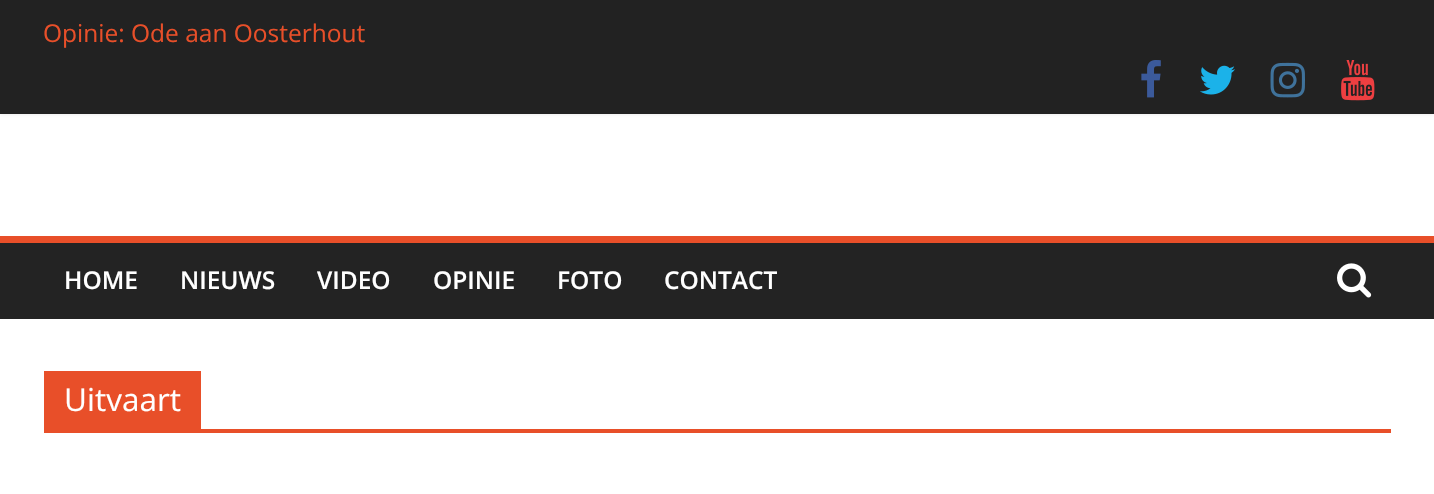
void draw(SkCanvas* c) {
SkPaint p;
p.setAntiAlias(true);
auto F=[&](const char* family, int weight, float size, bool italic = false){SkFontStyle style(weight, SkFontStyle::kNormal_Width,italic ? SkFontStyle::kItalic_Slant : SkFontStyle::kUpright_Slant);SkFont result(fontMgr->matchFamilyStyle(family, style), size);result.setSubpixel(true);return result;};
auto T=[&](const char* s, float x, float y, const SkFont& font){c->drawString(s, x, y, font, p);};
auto R=[&](float x, float y, float w, float h){c->drawRect(SkRect::MakeXYWH(x, y, w, h), p);};
auto I=[&](const char* path, float x, float y, float w, float h){auto image = SkImages::DeferredFromEncodedData(SkData::MakeFromFileName(path));c->drawImageRect(image, SkRect::MakeXYWH(x, y, w, h), SkSamplingOptions());};
c->clear(0xffffffff);
p.setColor(0x1a000000);
p.setMaskFilter(SkMaskFilter::MakeBlur(kNormal_SkBlurStyle, 2));
c->drawRect(SkRect::MakeXYWH(0,0,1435,114),p);
p.setMaskFilter(nullptr);
p.setColor(0xff222222);
R(0,0,1434,114);
auto f1 = F("Open Sans",400,24.5);
p.setColor(0xffe84f29);
T("Opinie: Ode aan Oosterhout",43,42,f1);
I("1.png",1141,60,20,38);
I("2.png",1200,65,35,30);
I("3.png",1270,62,35,36);
I("4.png",1341,60,34,41);
p.setColor(0xff232323);
R(0,243,1434,76);
p.setColor(0xffe84f29);
R(0,236,1434,7);
auto f2 = F("Open Sans",600,24.5);
p.setColor(0xffffffff);
T("HOME",64,289,f2);
T("NIEUWS",180,289,f2);
T("VIDEO",317,289,f2);
T("OPINIE",433,289,f2);
T("FOTO",557,289,f2);
T("CONTACT",664,289,f2);
I("5.png",1337,263,35,35);
p.setColor(0xffe84f29);
R(44,429,1347,4);
R(44,371,157,58);
auto f3 = F("Open Sans",400,31.5);
p.setColor(0xffffffff);
T("Uitvaart",64,411,f3);
}
